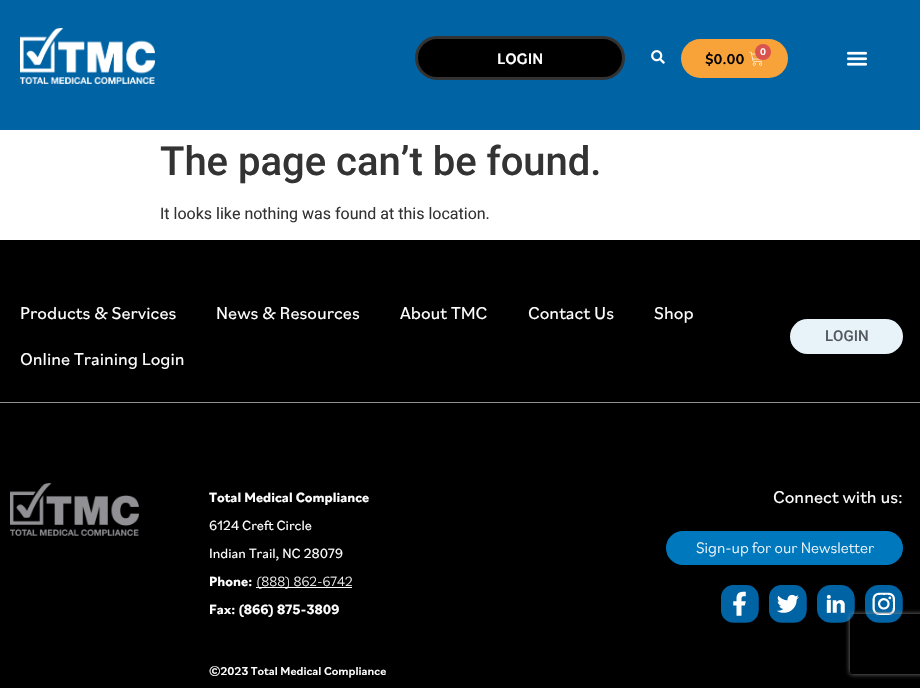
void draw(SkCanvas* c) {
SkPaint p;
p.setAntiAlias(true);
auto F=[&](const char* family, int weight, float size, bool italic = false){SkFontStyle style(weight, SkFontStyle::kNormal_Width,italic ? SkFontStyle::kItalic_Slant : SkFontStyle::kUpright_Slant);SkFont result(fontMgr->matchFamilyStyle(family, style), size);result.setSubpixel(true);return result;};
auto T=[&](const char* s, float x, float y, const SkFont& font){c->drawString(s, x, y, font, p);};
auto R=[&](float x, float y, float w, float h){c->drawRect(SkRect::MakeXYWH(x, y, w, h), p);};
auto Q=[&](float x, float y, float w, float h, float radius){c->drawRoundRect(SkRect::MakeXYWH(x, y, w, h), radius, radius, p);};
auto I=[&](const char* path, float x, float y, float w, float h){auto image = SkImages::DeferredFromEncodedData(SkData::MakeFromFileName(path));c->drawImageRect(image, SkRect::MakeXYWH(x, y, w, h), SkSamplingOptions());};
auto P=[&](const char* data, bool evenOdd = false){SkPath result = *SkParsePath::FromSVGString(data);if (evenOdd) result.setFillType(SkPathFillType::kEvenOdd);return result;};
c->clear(0xffffffff);
p.setColor(0xff0063a4);
R(0,0,920,130);
I("1.png",20,28,135,56);
p.setColor(0xff000000);
c->drawRoundRect(SkRect::MakeXYWH(416.5,37.5,207,41),20.5,20.5,p);
p.setStroke(true);
p.setStrokeWidth(3);
p.setColor(0xff333333);
c->drawRoundRect(SkRect::MakeXYWH(416.5,37.5,207,41),20.5,20.5,p);
auto f1 = F("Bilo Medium",500,16);
p.setStroke(false);
p.setColor(0xffffffff);
T("LOGIN",497,64,f1);
I("2.png",651,50,14,14);
p.setColor(0xfff8a23a);
Q(681,39,107,39,19.5);
auto f2 = F("Bilo Medium",500,15);
p.setColor(0xff000000);
T("$0.00",705,64,f2);
I("3.png",749,51,14,15);
p.setColor(0xffd9534f);
c->drawCircle(763,52,8,p);
auto f3 = F("Bilo Medium",500,10);
p.setColor(0xffffffff);
T("0",760,55,f3);
I("4.png",846,51,22,15);
auto f4 = F("Roboto",500,40);
p.setColor(0xff333333);
T("The page can’t be found.",160,175,f4);
auto f5 = F("Roboto",400,16);
T("It looks like nothing was found at this location.",160,219,f5);
p.setColor(0xff000000);
R(0,240,920,162);
p.setColor(0xff919195);
R(0,402,920,1);
auto f6 = F("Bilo",400,18);
p.setColor(0xffffffff);
T("Products & Services",20,319,f6);
T("News & Resources",216,319,f6);
T("About TMC",400,319,f6);
T("Contact Us",528,319,f6);
T("Shop",654,319,f6);
T("Online Training Login",20,365,f6);
p.setColor(0xffe8f3f9);
Q(790,319,113,35,17.5);
auto f7 = F("Roboto",500,15);
p.setColor(0xff54595f);
T("LOGIN",825,341,f7);
p.setColor(0xff000000);
R(0,403,920,285);
I("5.png",10,483,129,53);
auto f8 = F("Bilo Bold",700,14);
p.setColor(0xffffffff);
T("Total Medical Compliance",209,502,f8);
auto f9 = F("Bilo",400,14);
T("6124 Creft Circle",209,530,f9);
T("Indian Trail, NC 28079",209,558,f9);
T("Phone:",209,586,f8);
R(256,587,96,1);
auto f10 = F("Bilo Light",300,14);
T("(888) 862-6742",256,586,f10);
T("Fax: (866) 875-3809",209,614,f8);
auto f11 = F("Bilo Medium",500,12);
T("©2023 Total Medical Compliance",209,675,f11);
T("Connect with us:",773,503,f6);
p.setColor(0xff0078bd);
c->drawRoundRect(SkRect::MakeXYWH(667.5,532.5,234,31),15.5,15.5,p);
p.setStroke(true);
c->drawRoundRect(SkRect::MakeXYWH(667.5,532.5,234,31),15.5,15.5,p);
auto f12 = F("Bilo Light",300,16);
p.setStroke(false);
p.setColor(0xffffffff);
T("Sign-up for our Newsletter",696,553,f12);
I("6.png",721,585,38,38);
I("7.png",769,585,38,38);
I("8.png",817,585,38,38);
I("9.png",865,585,38,38);
c->save();
c->clipPath(P("M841 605h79v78h-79zm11 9h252c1 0 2 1 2 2v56c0 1-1 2-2 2h-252c-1 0-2-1-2-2v-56c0-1 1-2 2-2z",true),true);
p.setColor(0xff808080);
p.setMaskFilter(SkMaskFilter::MakeBlur(kNormal_SkBlurStyle, 2.5));
c->drawRoundRect(SkRect::MakeXYWH(850,614,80,60),2,2,p);
p.setMaskFilter(nullptr);
c->restore();
}
